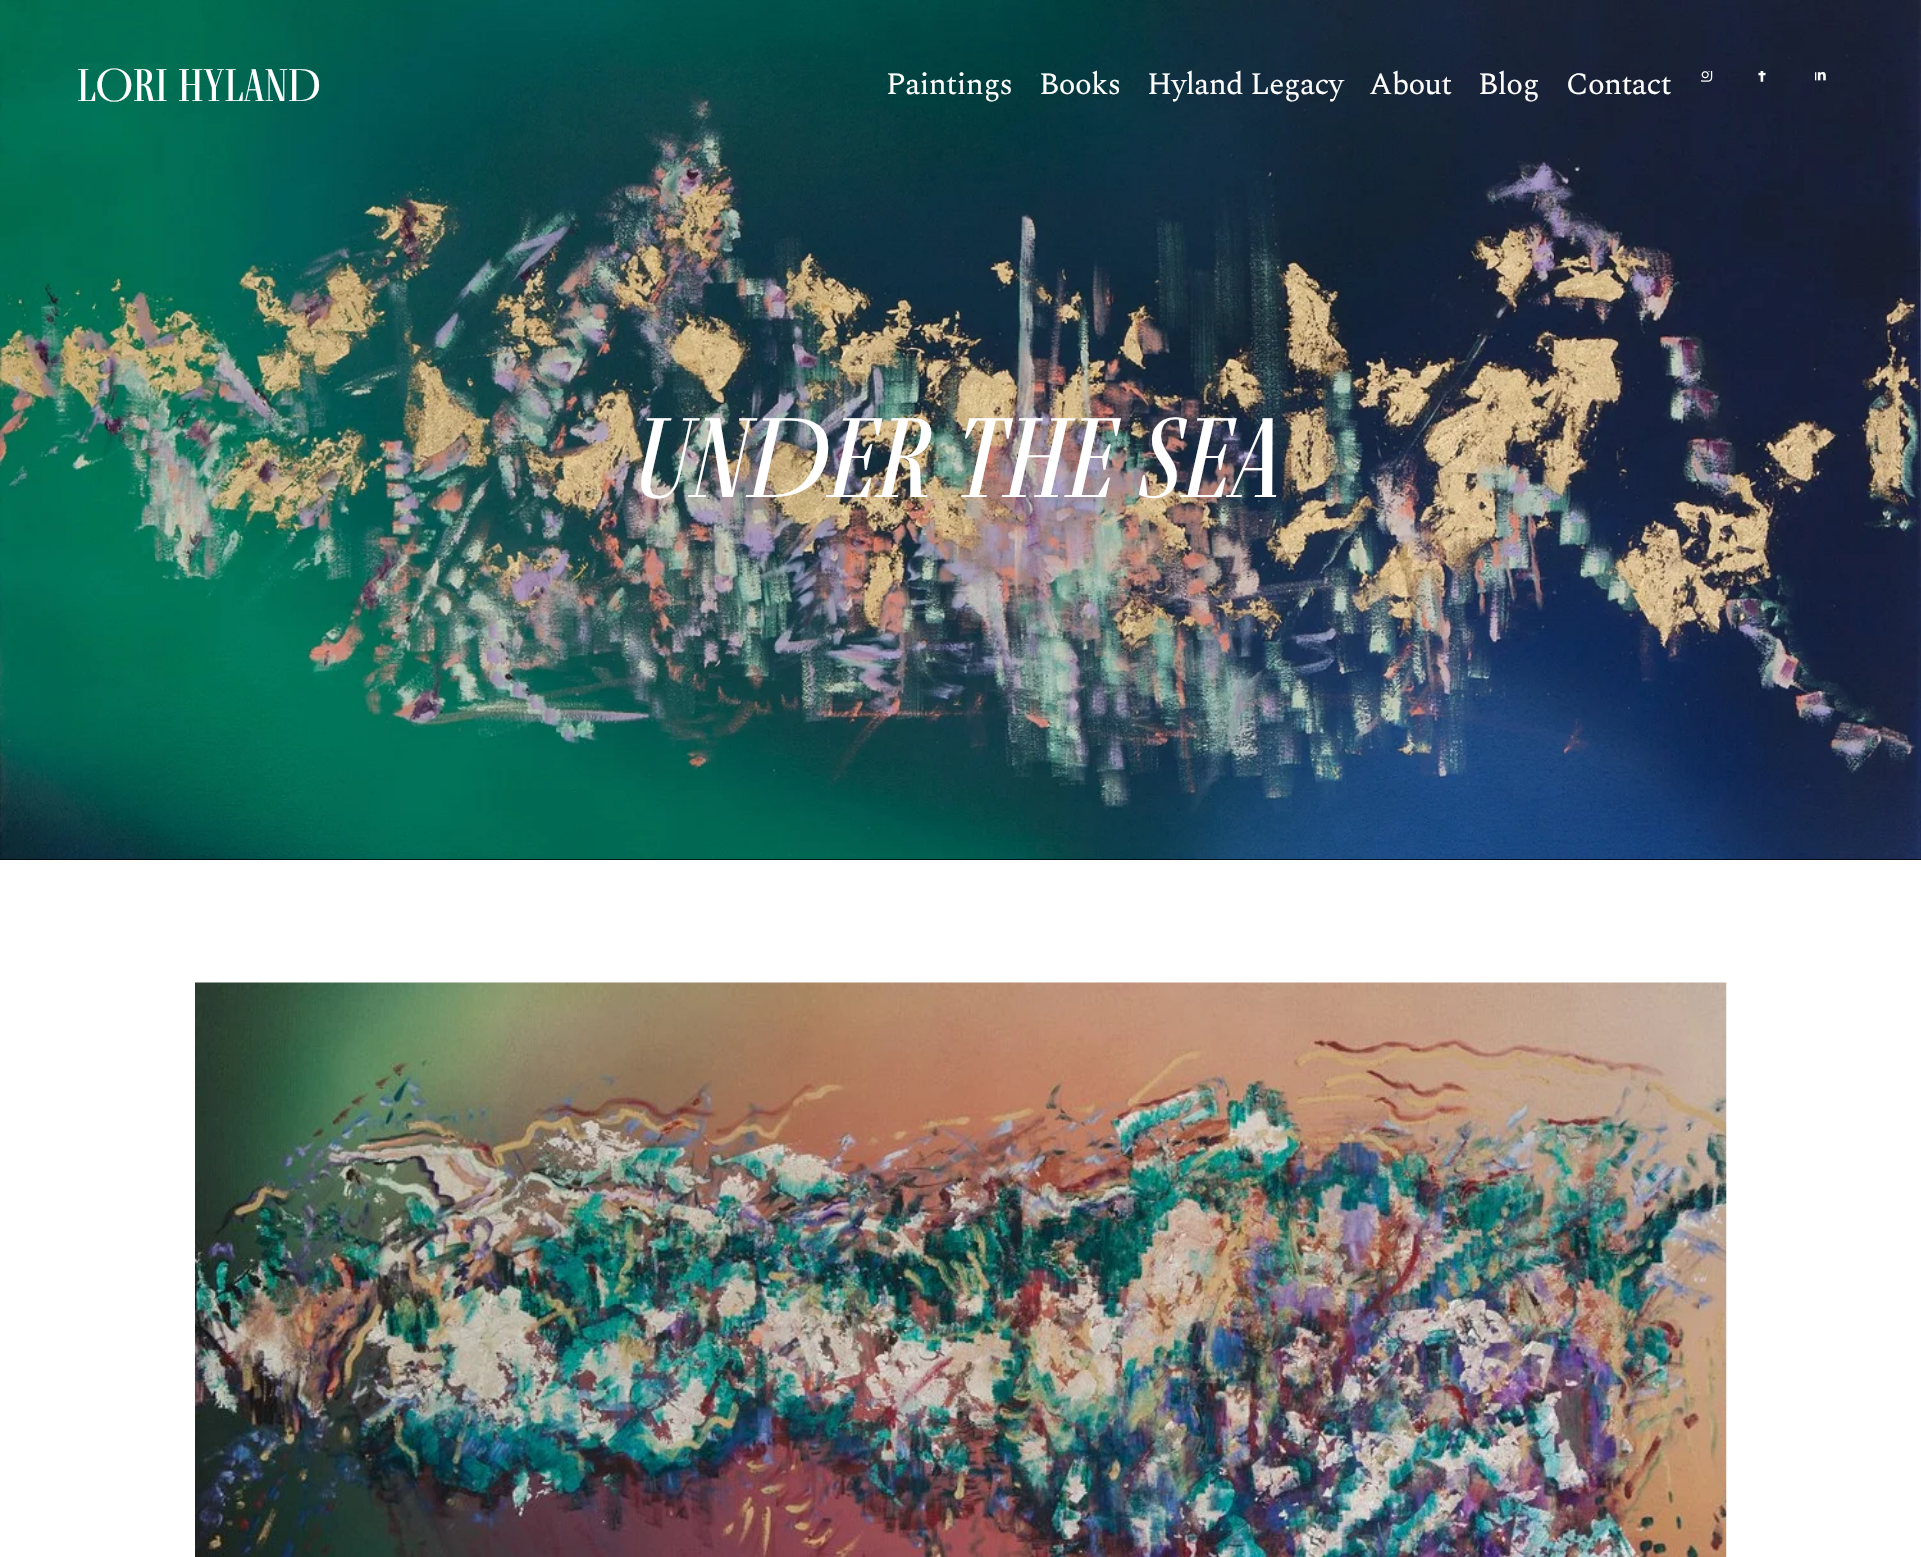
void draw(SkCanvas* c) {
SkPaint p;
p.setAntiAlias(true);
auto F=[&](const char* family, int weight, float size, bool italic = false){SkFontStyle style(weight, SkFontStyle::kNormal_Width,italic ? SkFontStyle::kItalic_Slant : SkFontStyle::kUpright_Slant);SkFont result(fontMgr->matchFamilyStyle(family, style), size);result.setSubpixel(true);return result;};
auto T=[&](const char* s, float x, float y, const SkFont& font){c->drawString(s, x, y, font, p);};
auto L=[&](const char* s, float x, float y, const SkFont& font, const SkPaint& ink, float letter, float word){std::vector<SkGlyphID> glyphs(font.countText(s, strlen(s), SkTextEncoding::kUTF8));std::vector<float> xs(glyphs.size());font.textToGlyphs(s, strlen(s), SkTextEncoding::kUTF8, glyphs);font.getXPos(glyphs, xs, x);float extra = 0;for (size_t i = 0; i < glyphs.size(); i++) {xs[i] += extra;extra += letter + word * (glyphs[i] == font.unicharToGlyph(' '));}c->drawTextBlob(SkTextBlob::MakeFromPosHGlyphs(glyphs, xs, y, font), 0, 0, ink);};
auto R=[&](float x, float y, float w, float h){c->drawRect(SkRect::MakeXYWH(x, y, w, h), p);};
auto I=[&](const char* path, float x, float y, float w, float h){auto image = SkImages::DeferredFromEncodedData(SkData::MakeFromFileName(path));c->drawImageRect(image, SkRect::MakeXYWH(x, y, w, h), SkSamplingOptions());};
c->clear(0xffffffff);
p.setColor(0xff000000);
R(0,859,1921,1);
I("4.png",0,0,1921,860);
auto f1 = F("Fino",400,47);
p.setColor(0xffffffff);
T("LORI HYLAND",77,101,f1);
auto f2 = F("Spectral",400,31);
L("Paintings",886,94,f2,p,-.6,0);
L("Books",1039,94,f2,p,-.6,0);
L("Hyland Legacy",1147,94,f2,p,-.6,0);
L("About",1369,94,f2,p,-.6,0);
L("Blog",1478,94,f2,p,-.6,0);
L("Contact",1566,94,f2,p,-.6,0);
I("1.png",1701,71,12,11);
I("2.png",1758,71,8,11);
I("3.png",1815,72,11,9);
auto f3 = F("Fino",400,116.25,true);
T("UNDER THE SEA",636,497,f3);
I("5.png",195,982,1532,575);
}
